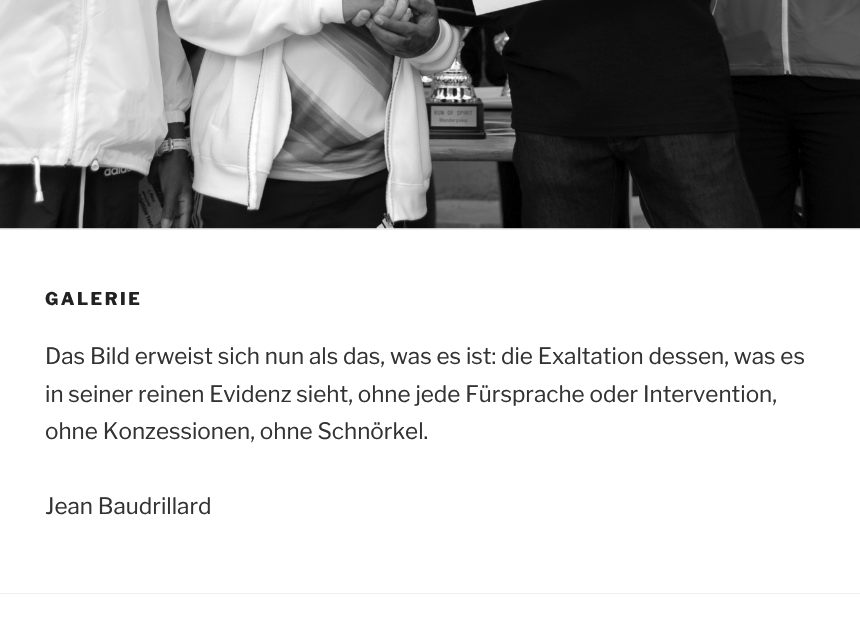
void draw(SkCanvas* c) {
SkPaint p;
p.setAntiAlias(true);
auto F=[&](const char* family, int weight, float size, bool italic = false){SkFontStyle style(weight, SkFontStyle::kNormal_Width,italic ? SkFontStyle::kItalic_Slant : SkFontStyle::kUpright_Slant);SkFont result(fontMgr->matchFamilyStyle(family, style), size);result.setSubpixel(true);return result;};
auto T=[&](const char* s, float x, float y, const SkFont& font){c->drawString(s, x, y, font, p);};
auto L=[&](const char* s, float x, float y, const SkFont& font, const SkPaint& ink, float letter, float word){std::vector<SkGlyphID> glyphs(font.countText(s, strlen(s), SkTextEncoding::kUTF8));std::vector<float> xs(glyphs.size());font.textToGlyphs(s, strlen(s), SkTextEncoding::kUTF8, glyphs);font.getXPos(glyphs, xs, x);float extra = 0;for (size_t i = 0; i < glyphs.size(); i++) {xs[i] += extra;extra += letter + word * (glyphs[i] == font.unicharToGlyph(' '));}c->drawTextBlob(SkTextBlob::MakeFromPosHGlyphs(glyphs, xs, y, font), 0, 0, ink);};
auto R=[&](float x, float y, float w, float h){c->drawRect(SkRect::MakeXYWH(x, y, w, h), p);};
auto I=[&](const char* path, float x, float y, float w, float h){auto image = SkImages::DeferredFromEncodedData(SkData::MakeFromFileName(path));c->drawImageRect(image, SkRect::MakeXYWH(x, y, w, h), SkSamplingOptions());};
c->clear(0xffffffff);
p.setColor(0xfffafafa);
R(0,228,860,1);
p.setColor(0xffeeeeee);
R(0,229,860,1);
I("1.png",0,0,860,229);
auto f1 = F("Libre Franklin",800,17.5);
p.setColor(0xff222222);
L("GALERIE",45,305,f1,p,2.5,0);
auto f2 = F("Libre Franklin",400,22.5);
p.setColor(0xff333333);
T("Das Bild erweist sich nun als das, was es ist: die Exaltation dessen, was es",45,364,f2);
T("in seiner reinen Evidenz sieht, ohne jede Fürsprache oder Intervention,",45,402,f2);
T("ohne Konzessionen, ohne Schnörkel.",45,439,f2);
T("Jean Baudrillard",45,514,f2);
p.setColor(0xffeeeeee);
R(0,593,860,1);
}
